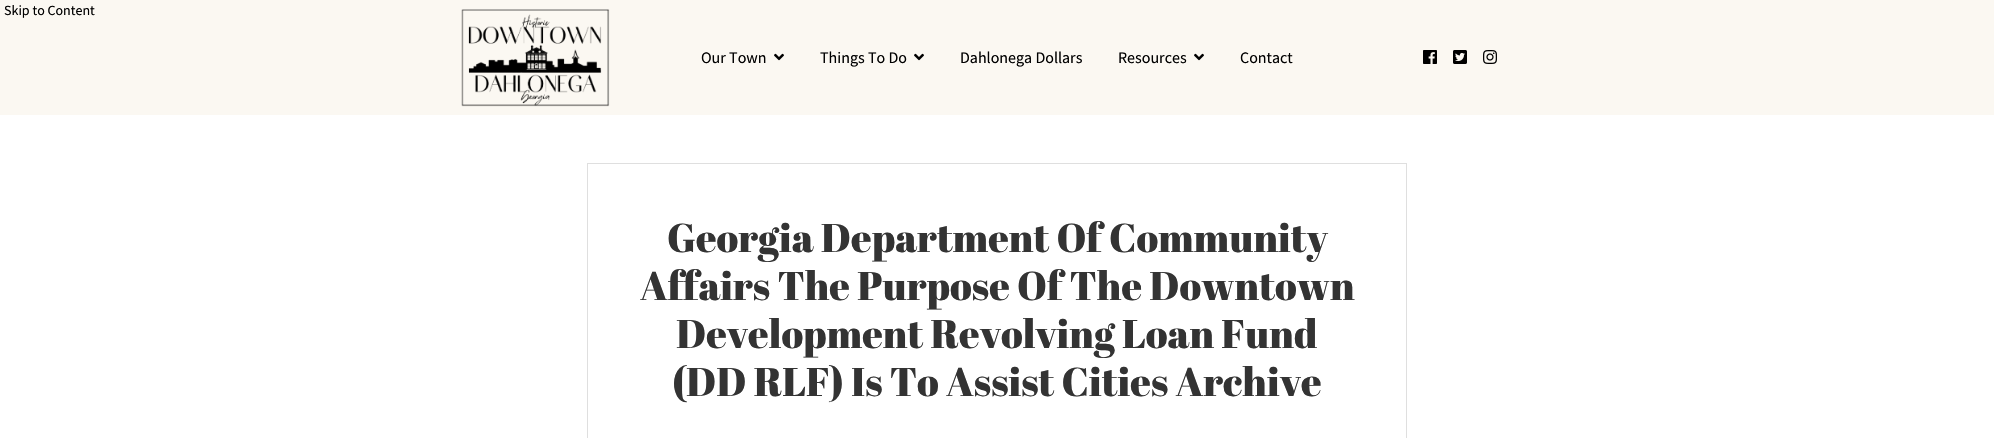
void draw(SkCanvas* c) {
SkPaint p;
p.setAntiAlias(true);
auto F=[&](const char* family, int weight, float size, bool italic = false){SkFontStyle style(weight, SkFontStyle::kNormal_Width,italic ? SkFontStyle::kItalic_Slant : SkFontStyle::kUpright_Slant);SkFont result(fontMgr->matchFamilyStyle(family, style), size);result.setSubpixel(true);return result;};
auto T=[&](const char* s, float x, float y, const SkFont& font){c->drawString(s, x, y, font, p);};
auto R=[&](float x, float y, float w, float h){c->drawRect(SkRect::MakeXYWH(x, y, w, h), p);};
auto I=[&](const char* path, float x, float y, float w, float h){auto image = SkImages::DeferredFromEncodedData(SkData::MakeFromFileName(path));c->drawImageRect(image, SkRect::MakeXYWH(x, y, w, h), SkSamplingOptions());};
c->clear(0xffffffff);
p.setColor(0xfffbf8f2);
R(0,0,1994,115);
auto f1 = F("Source Sans Pro",400,14);
p.setColor(0xff000000);
T("Skip to Content",4,15,f1);
I("1.png",461,9,149,98);
auto f2 = F("Source Sans Pro",400,16);
T("Our Town",701,63,f2);
I("2.png",774,53,10,8);
T("Things To Do",820,63,f2);
I("2.png",914,53,10,8);
T("Dahlonega Dollars",960,63,f2);
T("Resources",1118,63,f2);
I("2.png",1194,53,10,8);
T("Contact",1240,63,f2);
I("3.png",1423,50,14,14);
I("4.png",1453,50,14,14);
I("5.png",1483,50,14,14);
p.setStroke(true);
p.setStrokeWidth(1);
p.setColor(0xffdfdfdf);
c->drawRect(SkRect::MakeXYWH(587.5,163.5,819,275),p);
auto f3 = F("Abril Fatface",400,40);
p.setStroke(false);
p.setColor(0xff333333);
T("Georgia Department Of Community",667,252,f3);
T("Affairs The Purpose Of The Downtown",640,300,f3);
T("Development Revolving Loan Fund",676,348,f3);
T("(DD RLF) Is To Assist Cities Archive",672,396,f3);
}
